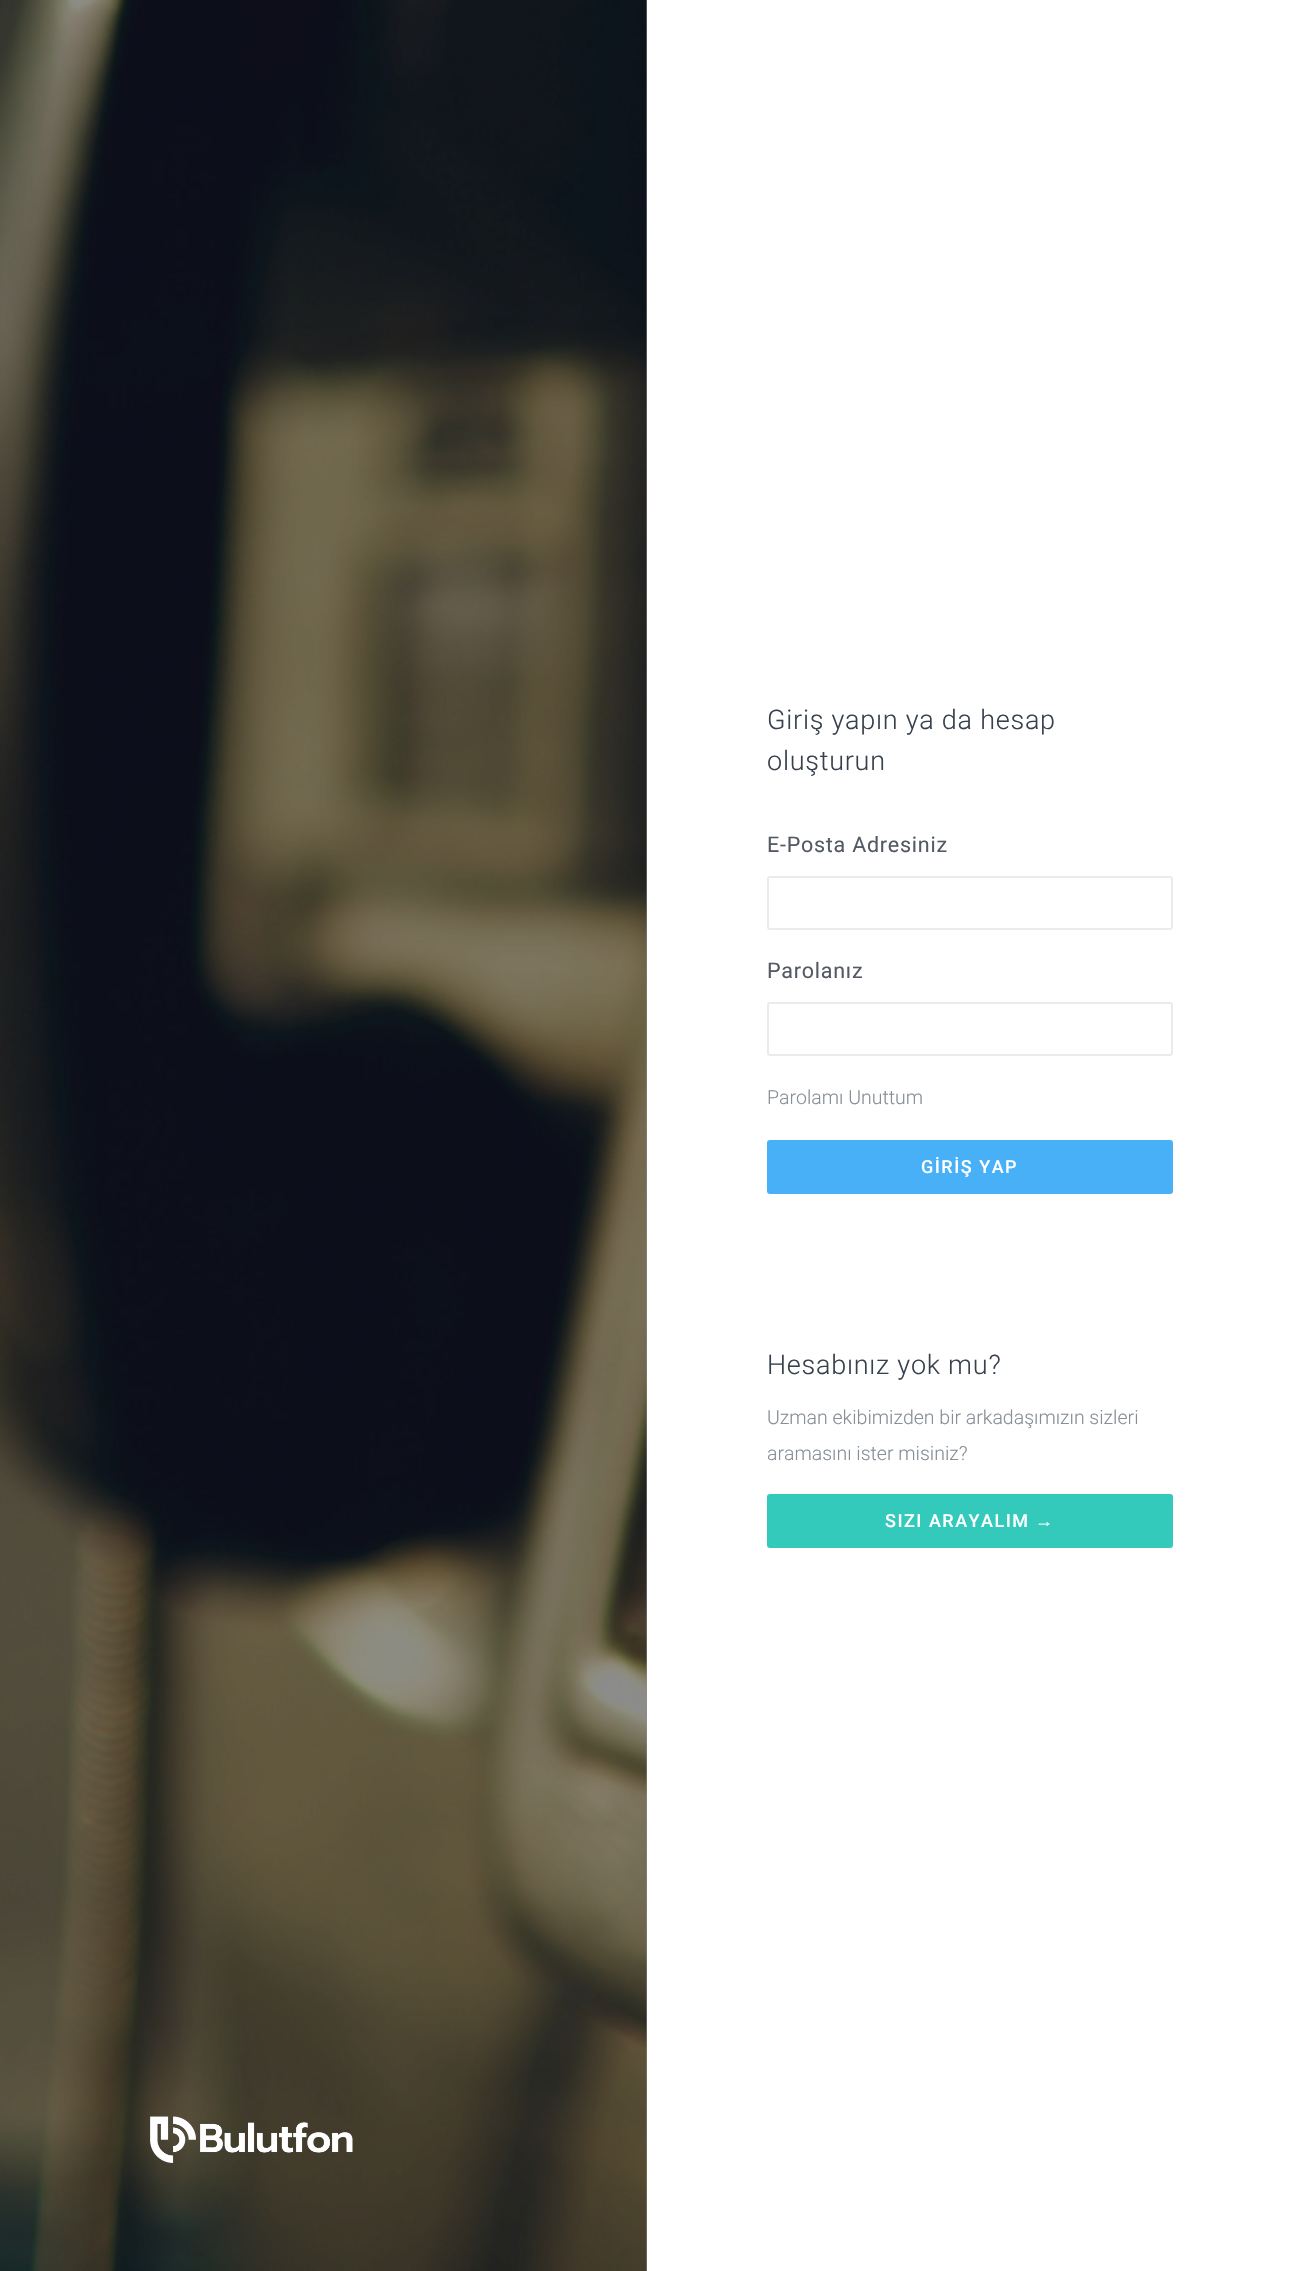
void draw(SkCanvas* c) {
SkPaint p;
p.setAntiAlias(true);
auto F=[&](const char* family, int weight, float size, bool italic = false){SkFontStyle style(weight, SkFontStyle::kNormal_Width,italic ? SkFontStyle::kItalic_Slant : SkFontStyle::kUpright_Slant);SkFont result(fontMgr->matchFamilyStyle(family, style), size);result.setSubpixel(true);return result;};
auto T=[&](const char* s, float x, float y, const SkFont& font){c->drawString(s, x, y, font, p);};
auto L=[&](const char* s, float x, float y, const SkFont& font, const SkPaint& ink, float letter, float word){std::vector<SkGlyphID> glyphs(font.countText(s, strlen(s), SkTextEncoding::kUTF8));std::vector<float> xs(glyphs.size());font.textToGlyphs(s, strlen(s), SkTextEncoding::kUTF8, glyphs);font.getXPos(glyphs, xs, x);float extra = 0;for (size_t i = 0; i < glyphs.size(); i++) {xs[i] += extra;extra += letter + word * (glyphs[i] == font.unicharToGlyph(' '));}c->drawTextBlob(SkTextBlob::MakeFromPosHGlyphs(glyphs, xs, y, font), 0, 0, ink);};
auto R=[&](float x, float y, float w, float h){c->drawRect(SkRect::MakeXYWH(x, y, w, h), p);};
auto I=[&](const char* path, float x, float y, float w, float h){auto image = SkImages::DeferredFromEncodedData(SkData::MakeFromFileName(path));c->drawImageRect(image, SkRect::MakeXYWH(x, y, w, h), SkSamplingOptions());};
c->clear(0xffffffff);
p.setColor(0xff8c8c8c);
R(646,0,1,2271);
I("1.png",0,0,647,2271);
I("2.png",150,2116,203,47);
auto f1 = F("Roboto",300,27);
p.setColor(0xff37404d);
L("Giriş yapın ya da hesap",767,729,f1,p,.75,0);
L("oluşturun",767,770,f1,p,.75,0);
auto f2 = F("Roboto",400,21.5);
p.setColor(0xff545a63);
L("E-Posta Adresiniz",767,852,f2,p,.75,0);
p.setStroke(true);
p.setStrokeWidth(2);
p.setColor(0xffebebeb);
c->drawRoundRect(SkRect::MakeXYWH(768,877,404,52),2,2,p);
p.setStroke(false);
p.setColor(0xff545a63);
L("Parolanız",767,978,f2,p,.75,0);
p.setStroke(true);
p.setColor(0xffebebeb);
c->drawRoundRect(SkRect::MakeXYWH(768,1003,404,52),2,2,p);
auto f3 = F("Roboto",300,19.5);
p.setStroke(false);
p.setColor(0xff868e96);
T("Parolamı Unuttum",767,1104,f3);
p.setColor(0xff48b0f7);
c->drawRoundRect(SkRect::MakeXYWH(768,1141,404,52),2,2,p);
p.setStroke(true);
c->drawRoundRect(SkRect::MakeXYWH(768,1141,404,52),2,2,p);
auto f4 = F("Roboto",500,18);
p.setStroke(false);
p.setColor(0xffffffff);
L("GİRİŞ YAP",921,1173,f4,p,1.5,0);
p.setColor(0xff37404d);
L("Hesabınız yok mu?",767,1374,f1,p,.75,0);
p.setColor(0xff868e96);
T("Uzman ekibimizden bir arkadaşımızın sizleri",767,1424,f3);
T("aramasını ister misiniz?",767,1460,f3);
p.setColor(0xff33cabb);
c->drawRoundRect(SkRect::MakeXYWH(768,1495,404,52),2,2,p);
p.setStroke(true);
c->drawRoundRect(SkRect::MakeXYWH(768,1495,404,52),2,2,p);
p.setStroke(false);
p.setColor(0xffffffff);
L("SIZI ARAYALIM",885,1527,f4,p,1.5,0);
auto f5 = F("Liberation Sans",400,18);
L("→",1035,1527,f5,p,1.5,0);
}
